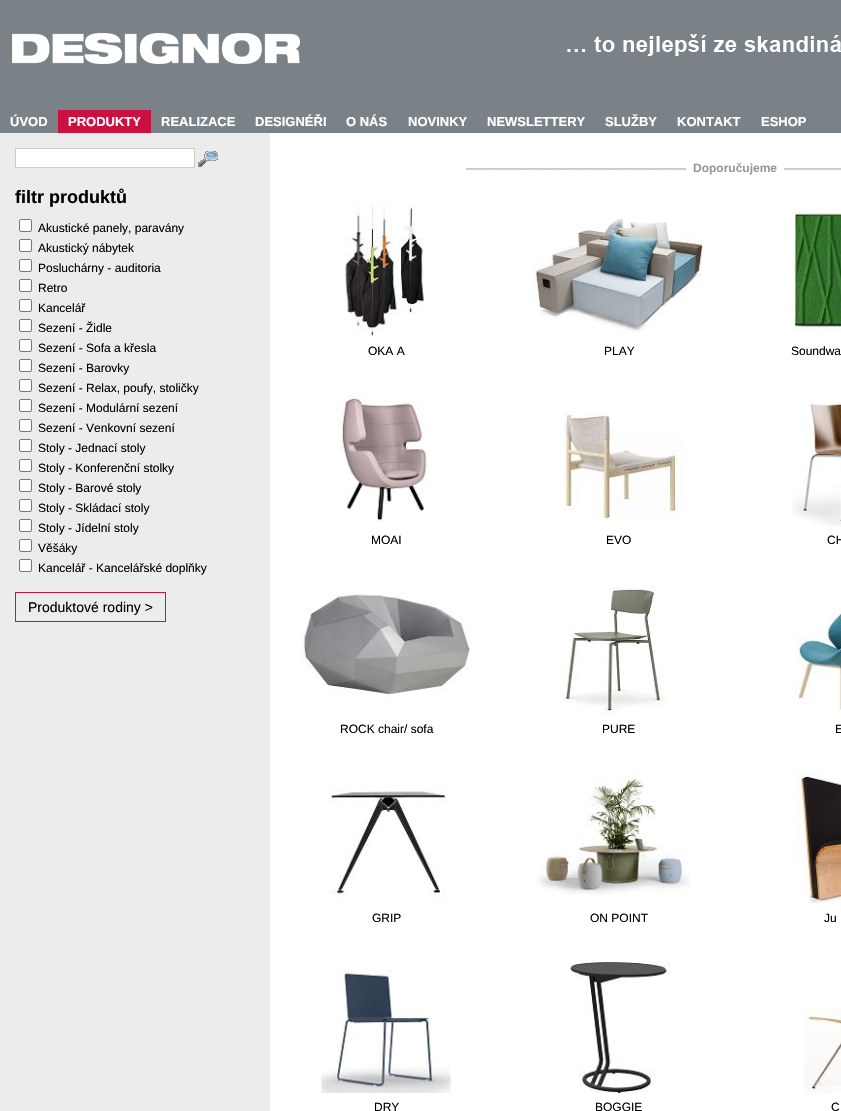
void draw(SkCanvas* c) {
SkPaint p;
p.setAntiAlias(true);
auto F=[&](const char* family, int weight, float size, bool italic = false){SkFontStyle style(weight, SkFontStyle::kNormal_Width,italic ? SkFontStyle::kItalic_Slant : SkFontStyle::kUpright_Slant);SkFont result(fontMgr->matchFamilyStyle(family, style), size);result.setSubpixel(true);return result;};
auto T=[&](const char* s, float x, float y, const SkFont& font){c->drawString(s, x, y, font, p);};
auto R=[&](float x, float y, float w, float h){c->drawRect(SkRect::MakeXYWH(x, y, w, h), p);};
auto I=[&](const char* path, float x, float y, float w, float h){auto image = SkImages::DeferredFromEncodedData(SkData::MakeFromFileName(path));c->drawImageRect(image, SkRect::MakeXYWH(x, y, w, h), SkSamplingOptions());};
c->clear(0xff7a8288);
I("1.png",12,33,829,31);
auto f1 = F("Liberation Sans",700,13);
p.setColor(0xffffffff);
T("ÚVOD",10,126,f1);
p.setColor(0xffca1141);
R(58,110,93,23);
p.setColor(0xffffffff);
T("PRODUKTY",68,126,f1);
T("REALIZACE",161,126,f1);
T("DESIGNÉŘI",255,126,f1);
T("O NÁS",346,126,f1);
T("NOVINKY",408,126,f1);
T("NEWSLETTERY",487,126,f1);
T("SLUŽBY",605,126,f1);
T("KONTAKT",677,126,f1);
T("ESHOP",761,126,f1);
R(270,133,571,978);
p.setColor(0xffececec);
R(0,133,270,978);
p.setColor(0xffffffff);
c->drawRect(SkRect::MakeXYWH(15.5,148.5,179,19),p);
p.setStroke(true);
p.setStrokeWidth(1);
p.setColor(0xffcccccc);
c->drawRect(SkRect::MakeXYWH(15.5,148.5,179,19),p);
I("2.png",198,151,20,16);
auto f2 = F("Liberation Sans",700,18);
p.setStroke(false);
p.setColor(0xff000000);
T("filtr produktů",15,203,f2);
p.setColor(0xffffffff);
c->drawRoundRect(SkRect::MakeXYWH(19.5,219.5,12,12),1.5,1.5,p);
p.setStroke(true);
p.setColor(0xff767676);
c->drawRoundRect(SkRect::MakeXYWH(19.5,219.5,12,12),1.5,1.5,p);
auto f3 = F("Liberation Sans",400,12);
p.setStroke(false);
p.setColor(0xff000000);
T("Akustické panely, paravány",38,232,f3);
p.setColor(0xffffffff);
c->drawRoundRect(SkRect::MakeXYWH(19.5,239.5,12,12),1.5,1.5,p);
p.setStroke(true);
p.setColor(0xff767676);
c->drawRoundRect(SkRect::MakeXYWH(19.5,239.5,12,12),1.5,1.5,p);
p.setStroke(false);
p.setColor(0xff000000);
T("Akustický nábytek",38,252,f3);
p.setColor(0xffffffff);
c->drawRoundRect(SkRect::MakeXYWH(19.5,259.5,12,12),1.5,1.5,p);
p.setStroke(true);
p.setColor(0xff767676);
c->drawRoundRect(SkRect::MakeXYWH(19.5,259.5,12,12),1.5,1.5,p);
p.setStroke(false);
p.setColor(0xff000000);
T("Posluchárny - auditoria",38,272,f3);
p.setColor(0xffffffff);
c->drawRoundRect(SkRect::MakeXYWH(19.5,279.5,12,12),1.5,1.5,p);
p.setStroke(true);
p.setColor(0xff767676);
c->drawRoundRect(SkRect::MakeXYWH(19.5,279.5,12,12),1.5,1.5,p);
p.setStroke(false);
p.setColor(0xff000000);
T("Retro",38,292,f3);
p.setColor(0xffffffff);
c->drawRoundRect(SkRect::MakeXYWH(19.5,299.5,12,12),1.5,1.5,p);
p.setStroke(true);
p.setColor(0xff767676);
c->drawRoundRect(SkRect::MakeXYWH(19.5,299.5,12,12),1.5,1.5,p);
p.setStroke(false);
p.setColor(0xff000000);
T("Kancelář",38,312,f3);
p.setColor(0xffffffff);
c->drawRoundRect(SkRect::MakeXYWH(19.5,319.5,12,12),1.5,1.5,p);
p.setStroke(true);
p.setColor(0xff767676);
c->drawRoundRect(SkRect::MakeXYWH(19.5,319.5,12,12),1.5,1.5,p);
p.setStroke(false);
p.setColor(0xff000000);
T("Sezení - Židle",38,332,f3);
p.setColor(0xffffffff);
c->drawRoundRect(SkRect::MakeXYWH(19.5,339.5,12,12),1.5,1.5,p);
p.setStroke(true);
p.setColor(0xff767676);
c->drawRoundRect(SkRect::MakeXYWH(19.5,339.5,12,12),1.5,1.5,p);
p.setStroke(false);
p.setColor(0xff000000);
T("Sezení - Sofa a křesla",38,352,f3);
p.setColor(0xffffffff);
c->drawRoundRect(SkRect::MakeXYWH(19.5,359.5,12,12),1.5,1.5,p);
p.setStroke(true);
p.setColor(0xff767676);
c->drawRoundRect(SkRect::MakeXYWH(19.5,359.5,12,12),1.5,1.5,p);
p.setStroke(false);
p.setColor(0xff000000);
T("Sezení - Barovky",38,372,f3);
p.setColor(0xffffffff);
c->drawRoundRect(SkRect::MakeXYWH(19.5,379.5,12,12),1.5,1.5,p);
p.setStroke(true);
p.setColor(0xff767676);
c->drawRoundRect(SkRect::MakeXYWH(19.5,379.5,12,12),1.5,1.5,p);
p.setStroke(false);
p.setColor(0xff000000);
T("Sezení - Relax, poufy, stoličky",38,392,f3);
p.setColor(0xffffffff);
c->drawRoundRect(SkRect::MakeXYWH(19.5,399.5,12,12),1.5,1.5,p);
p.setStroke(true);
p.setColor(0xff767676);
c->drawRoundRect(SkRect::MakeXYWH(19.5,399.5,12,12),1.5,1.5,p);
p.setStroke(false);
p.setColor(0xff000000);
T("Sezení - Modulární sezení",38,412,f3);
p.setColor(0xffffffff);
c->drawRoundRect(SkRect::MakeXYWH(19.5,419.5,12,12),1.5,1.5,p);
p.setStroke(true);
p.setColor(0xff767676);
c->drawRoundRect(SkRect::MakeXYWH(19.5,419.5,12,12),1.5,1.5,p);
p.setStroke(false);
p.setColor(0xff000000);
T("Sezení - Venkovní sezení",38,432,f3);
p.setColor(0xffffffff);
c->drawRoundRect(SkRect::MakeXYWH(19.5,439.5,12,12),1.5,1.5,p);
p.setStroke(true);
p.setColor(0xff767676);
c->drawRoundRect(SkRect::MakeXYWH(19.5,439.5,12,12),1.5,1.5,p);
p.setStroke(false);
p.setColor(0xff000000);
T("Stoly - Jednací stoly",38,452,f3);
p.setColor(0xffffffff);
c->drawRoundRect(SkRect::MakeXYWH(19.5,459.5,12,12),1.5,1.5,p);
p.setStroke(true);
p.setColor(0xff767676);
c->drawRoundRect(SkRect::MakeXYWH(19.5,459.5,12,12),1.5,1.5,p);
p.setStroke(false);
p.setColor(0xff000000);
T("Stoly - Konferenční stolky",38,472,f3);
p.setColor(0xffffffff);
c->drawRoundRect(SkRect::MakeXYWH(19.5,479.5,12,12),1.5,1.5,p);
p.setStroke(true);
p.setColor(0xff767676);
c->drawRoundRect(SkRect::MakeXYWH(19.5,479.5,12,12),1.5,1.5,p);
p.setStroke(false);
p.setColor(0xff000000);
T("Stoly - Barové stoly",38,492,f3);
p.setColor(0xffffffff);
c->drawRoundRect(SkRect::MakeXYWH(19.5,499.5,12,12),1.5,1.5,p);
p.setStroke(true);
p.setColor(0xff767676);
c->drawRoundRect(SkRect::MakeXYWH(19.5,499.5,12,12),1.5,1.5,p);
p.setStroke(false);
p.setColor(0xff000000);
T("Stoly - Skládací stoly",38,512,f3);
p.setColor(0xffffffff);
c->drawRoundRect(SkRect::MakeXYWH(19.5,519.5,12,12),1.5,1.5,p);
p.setStroke(true);
p.setColor(0xff767676);
c->drawRoundRect(SkRect::MakeXYWH(19.5,519.5,12,12),1.5,1.5,p);
p.setStroke(false);
p.setColor(0xff000000);
T("Stoly - Jídelní stoly",38,532,f3);
p.setColor(0xffffffff);
c->drawRoundRect(SkRect::MakeXYWH(19.5,539.5,12,12),1.5,1.5,p);
p.setStroke(true);
p.setColor(0xff767676);
c->drawRoundRect(SkRect::MakeXYWH(19.5,539.5,12,12),1.5,1.5,p);
p.setStroke(false);
p.setColor(0xff000000);
T("Věšáky",38,552,f3);
p.setColor(0xffffffff);
c->drawRoundRect(SkRect::MakeXYWH(19.5,559.5,12,12),1.5,1.5,p);
p.setStroke(true);
p.setColor(0xff767676);
c->drawRoundRect(SkRect::MakeXYWH(19.5,559.5,12,12),1.5,1.5,p);
p.setStroke(false);
p.setColor(0xff000000);
T("Kancelář - Kancelářské doplňky",38,572,f3);
p.setStroke(true);
p.setColor(0xffce1141);
c->drawRect(SkRect::MakeXYWH(15.5,592.5,150,29),p);
auto f4 = F("Liberation Sans",400,14);
p.setStroke(false);
p.setColor(0xff000000);
T("Produktové rodiny >",28,612,f4);
p.setColor(0xff999999);
T("–––––––––––––––––––––––––––––––––",466,172,f3);
auto f5 = F("Liberation Sans",700,12);
T("Doporučujeme",693,172,f5);
T("–––––––––",784,172,f3);
I("3.png",345,206,79,131);
I("4.png",532,218,171,114);
I("5.png",794,206,47,124);
p.setColor(0xff000000);
T("OKA A",368,355,f3);
T("PLAY",604,355,f3);
T("Soundwa",791,355,f3);
I("6.png",338,395,91,127);
I("7.png",563,412,120,108);
I("8.png",792,395,49,131);
T("MOAI",371,544,f3);
T("EVO",606,544,f3);
T("CH",827,544,f3);
I("9.png",300,592,170,105);
I("10.png",563,585,102,130);
I("11.png",795,607,46,103);
T("ROCK chair/ sofa",340,733,f3);
T("PURE",602,733,f3);
T("E",835,733,f3);
I("12.png",330,789,117,108);
I("13.png",536,773,155,122);
I("14.png",795,773,46,131);
T("GRIP",372,922,f3);
T("ON POINT",590,922,f3);
T("Ju",824,922,f3);
I("15.png",321,970,130,123);
I("16.png",570,962,102,131);
I("17.png",804,1008,37,85);
T("DRY",374,1111,f3);
T("BOGGIE",595,1111,f3);
T("C",831,1111,f3);
}
